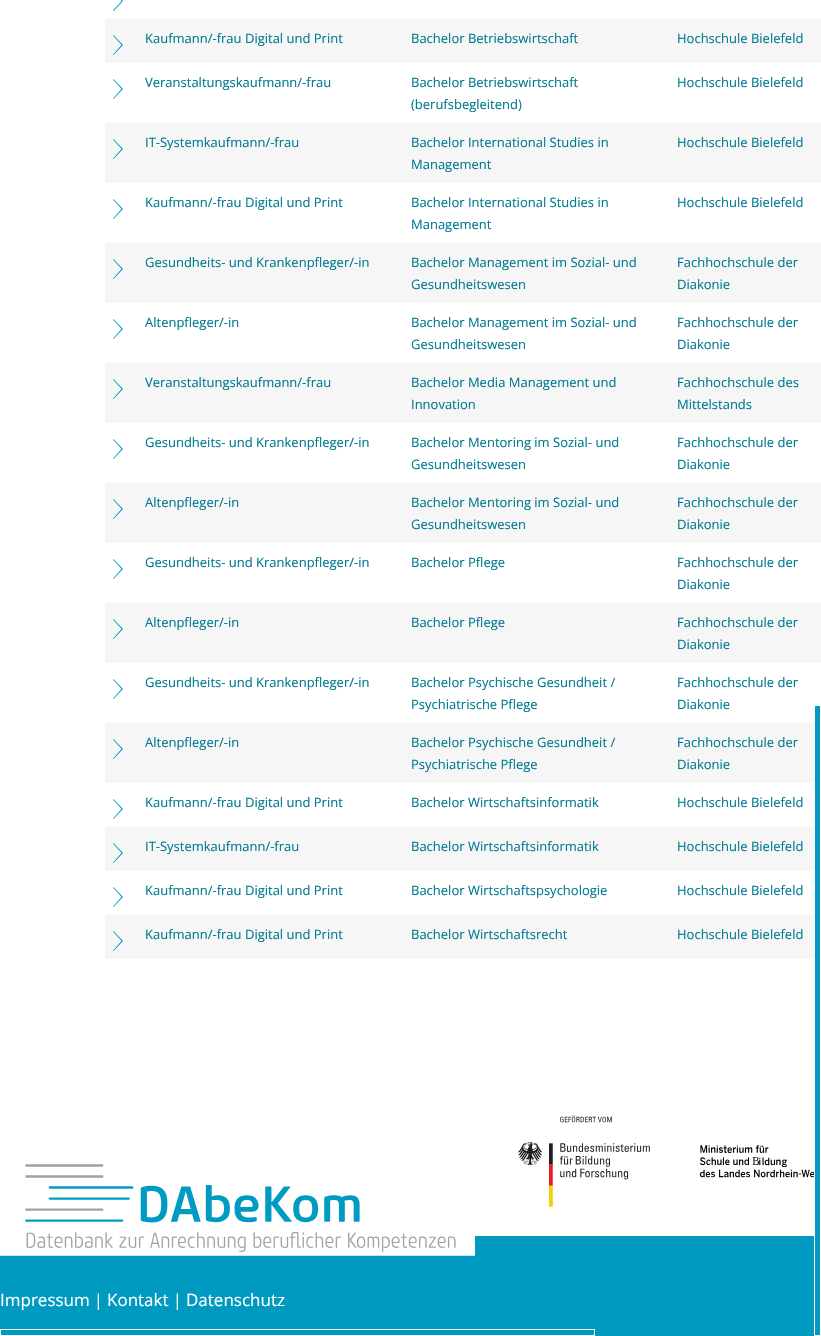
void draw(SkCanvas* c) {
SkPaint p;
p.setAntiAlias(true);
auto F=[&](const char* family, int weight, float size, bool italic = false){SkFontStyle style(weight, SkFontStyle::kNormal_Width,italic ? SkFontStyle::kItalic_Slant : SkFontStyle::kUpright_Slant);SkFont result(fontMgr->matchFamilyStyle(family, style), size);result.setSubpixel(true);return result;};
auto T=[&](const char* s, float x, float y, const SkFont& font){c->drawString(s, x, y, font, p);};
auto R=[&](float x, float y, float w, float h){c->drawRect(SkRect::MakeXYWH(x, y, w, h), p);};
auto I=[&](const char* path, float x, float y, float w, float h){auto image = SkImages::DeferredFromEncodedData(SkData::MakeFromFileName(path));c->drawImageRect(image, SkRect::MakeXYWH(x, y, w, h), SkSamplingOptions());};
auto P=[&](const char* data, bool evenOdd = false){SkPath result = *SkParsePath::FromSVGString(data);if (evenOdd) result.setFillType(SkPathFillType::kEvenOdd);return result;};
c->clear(0xffffffff);
I("1.png",113,0,10,11);
p.setColor(0xfff6f6f6);
R(105,19,716,44);
p.setColor(0xff009ac1);
c->drawPath(P("M123 45l-9.5 10l-.5-.5l8.5-9.5l-8.5-9.5l.5-.5z"),p);
auto f1 = F("Open Sans",400,13);
p.setColor(0xff007a91);
T("Kaufmann/-frau Digital und Print",145,43,f1);
T("Bachelor Betriebswirtschaft",411,43,f1);
T("Hochschule Bielefeld",677,43,f1);
p.setColor(0xff009ac1);
c->drawPath(P("M123 89l-9.5 10l-.5-.5l8.5-9.5l-8.5-9.5l.5-.5z"),p);
p.setColor(0xff007a91);
T("Veranstaltungskaufmann/-frau",145,87,f1);
T("Bachelor Betriebswirtschaft",411,87,f1);
T("(berufsbegleitend)",411,109,f1);
T("Hochschule Bielefeld",677,87,f1);
p.setColor(0xfff6f6f6);
R(105,123,716,60);
p.setColor(0xff009ac1);
c->drawPath(P("M123 149l-9.5 10l-.5-.5l8.5-9.5l-8.5-9.5l.5-.5z"),p);
p.setColor(0xff007a91);
T("IT-Systemkaufmann/-frau",145,147,f1);
T("Bachelor International Studies in",411,147,f1);
T("Management",411,169,f1);
T("Hochschule Bielefeld",677,147,f1);
p.setColor(0xff009ac1);
c->drawPath(P("M123 209l-9.5 10l-.5-.5l8.5-9.5l-8.5-9.5l.5-.5z"),p);
p.setColor(0xff007a91);
T("Kaufmann/-frau Digital und Print",145,207,f1);
T("Bachelor International Studies in",411,207,f1);
T("Management",411,229,f1);
T("Hochschule Bielefeld",677,207,f1);
p.setColor(0xfff6f6f6);
R(105,243,716,60);
p.setColor(0xff009ac1);
c->drawPath(P("M123 269l-9.5 10l-.5-.5l8.5-9.5l-8.5-9.5l.5-.5z"),p);
p.setColor(0xff007a91);
T("Gesundheits- und Krankenpfleger/-in",145,267,f1);
T("Bachelor Management im Sozial- und",411,267,f1);
T("Gesundheitswesen",411,289,f1);
T("Fachhochschule der",677,267,f1);
T("Diakonie",677,289,f1);
p.setColor(0xff009ac1);
c->drawPath(P("M123 329l-9.5 10l-.5-.5l8.5-9.5l-8.5-9.5l.5-.5z"),p);
p.setColor(0xff007a91);
T("Altenpfleger/-in",145,327,f1);
T("Bachelor Management im Sozial- und",411,327,f1);
T("Gesundheitswesen",411,349,f1);
T("Fachhochschule der",677,327,f1);
T("Diakonie",677,349,f1);
p.setColor(0xfff6f6f6);
R(105,363,716,60);
p.setColor(0xff009ac1);
c->drawPath(P("M123 389l-9.5 10l-.5-.5l8.5-9.5l-8.5-9.5l.5-.5z"),p);
p.setColor(0xff007a91);
T("Veranstaltungskaufmann/-frau",145,387,f1);
T("Bachelor Media Management und",411,387,f1);
T("Innovation",411,409,f1);
T("Fachhochschule des",677,387,f1);
T("Mittelstands",677,409,f1);
p.setColor(0xff009ac1);
c->drawPath(P("M123 449l-9.5 10l-.5-.5l8.5-9.5l-8.5-9.5l.5-.5z"),p);
p.setColor(0xff007a91);
T("Gesundheits- und Krankenpfleger/-in",145,447,f1);
T("Bachelor Mentoring im Sozial- und",411,447,f1);
T("Gesundheitswesen",411,469,f1);
T("Fachhochschule der",677,447,f1);
T("Diakonie",677,469,f1);
p.setColor(0xfff6f6f6);
R(105,483,716,60);
p.setColor(0xff009ac1);
c->drawPath(P("M123 509l-9.5 10l-.5-.5l8.5-9.5l-8.5-9.5l.5-.5z"),p);
p.setColor(0xff007a91);
T("Altenpfleger/-in",145,507,f1);
T("Bachelor Mentoring im Sozial- und",411,507,f1);
T("Gesundheitswesen",411,529,f1);
T("Fachhochschule der",677,507,f1);
T("Diakonie",677,529,f1);
p.setColor(0xff009ac1);
c->drawPath(P("M123 569l-9.5 10l-.5-.5l8.5-9.5l-8.5-9.5l.5-.5z"),p);
p.setColor(0xff007a91);
T("Gesundheits- und Krankenpfleger/-in",145,567,f1);
T("Bachelor Pflege",411,567,f1);
T("Fachhochschule der",677,567,f1);
T("Diakonie",677,589,f1);
p.setColor(0xfff6f6f6);
R(105,603,716,60);
p.setColor(0xff009ac1);
c->drawPath(P("M123 629l-9.5 10l-.5-.5l8.5-9.5l-8.5-9.5l.5-.5z"),p);
p.setColor(0xff007a91);
T("Altenpfleger/-in",145,627,f1);
T("Bachelor Pflege",411,627,f1);
T("Fachhochschule der",677,627,f1);
T("Diakonie",677,649,f1);
p.setColor(0xff009ac1);
c->drawPath(P("M123 689l-9.5 10l-.5-.5l8.5-9.5l-8.5-9.5l.5-.5z"),p);
p.setColor(0xff007a91);
T("Gesundheits- und Krankenpfleger/-in",145,687,f1);
T("Bachelor Psychische Gesundheit /",411,687,f1);
T("Psychiatrische Pflege",411,709,f1);
T("Fachhochschule der",677,687,f1);
T("Diakonie",677,709,f1);
p.setColor(0xfff6f6f6);
R(105,723,709,60);
p.setColor(0xff009ac1);
c->drawPath(P("M123 749l-9.5 10l-.5-.5l8.5-9.5l-8.5-9.5l.5-.5z"),p);
p.setColor(0xff007a91);
T("Altenpfleger/-in",145,747,f1);
T("Bachelor Psychische Gesundheit /",411,747,f1);
T("Psychiatrische Pflege",411,769,f1);
T("Fachhochschule der",677,747,f1);
T("Diakonie",677,769,f1);
p.setColor(0xff009ac1);
c->drawPath(P("M123 809l-9.5 10l-.5-.5l8.5-9.5l-8.5-9.5l.5-.5z"),p);
p.setColor(0xff007a91);
T("Kaufmann/-frau Digital und Print",145,807,f1);
T("Bachelor Wirtschaftsinformatik",411,807,f1);
T("Hochschule Bielefeld",677,807,f1);
p.setColor(0xfff6f6f6);
R(105,827,709,44);
p.setColor(0xff009ac1);
c->drawPath(P("M123 853l-9.5 10l-.5-.5l8.5-9.5l-8.5-9.5l.5-.5z"),p);
p.setColor(0xff007a91);
T("IT-Systemkaufmann/-frau",145,851,f1);
T("Bachelor Wirtschaftsinformatik",411,851,f1);
T("Hochschule Bielefeld",677,851,f1);
p.setColor(0xff009ac1);
c->drawPath(P("M123 897l-9.5 10l-.5-.5l8.5-9.5l-8.5-9.5l.5-.5z"),p);
p.setColor(0xff007a91);
T("Kaufmann/-frau Digital und Print",145,895,f1);
T("Bachelor Wirtschaftspsychologie",411,895,f1);
T("Hochschule Bielefeld",677,895,f1);
p.setColor(0xfff6f6f6);
R(105,915,709,44);
p.setColor(0xff009ac1);
c->drawPath(P("M123 941l-9.5 10l-.5-.5l8.5-9.5l-8.5-9.5l.5-.5z"),p);
p.setColor(0xff007a91);
T("Kaufmann/-frau Digital und Print",145,939,f1);
T("Bachelor Wirtschaftsrecht",411,939,f1);
T("Hochschule Bielefeld",677,939,f1);
p.setColor(0xff009ac1);
R(0,1236,814,100);
I("2.png",0,1164,475,92);
I("3.png",518,1115,132,92);
I("4.png",700,1145,114,33);
auto f2 = F("Open Sans",400,17);
p.setColor(0xffffffff);
T("Impressum",0,1306,f2);
auto f3 = F("Open Sans",400,16);
T("|",94,1306,f3);
T("Kontakt",107,1306,f2);
T("|",173,1306,f3);
T("Datenschutz",186,1306,f2);
p.setColor(0xff009ac1);
R(815,706,5,629);
p.setStroke(true);
p.setStrokeWidth(1);
p.setColor(0xffffffff);
c->drawRect(SkRect::MakeXYWH(.5,1329.5,594,6),p);
}
